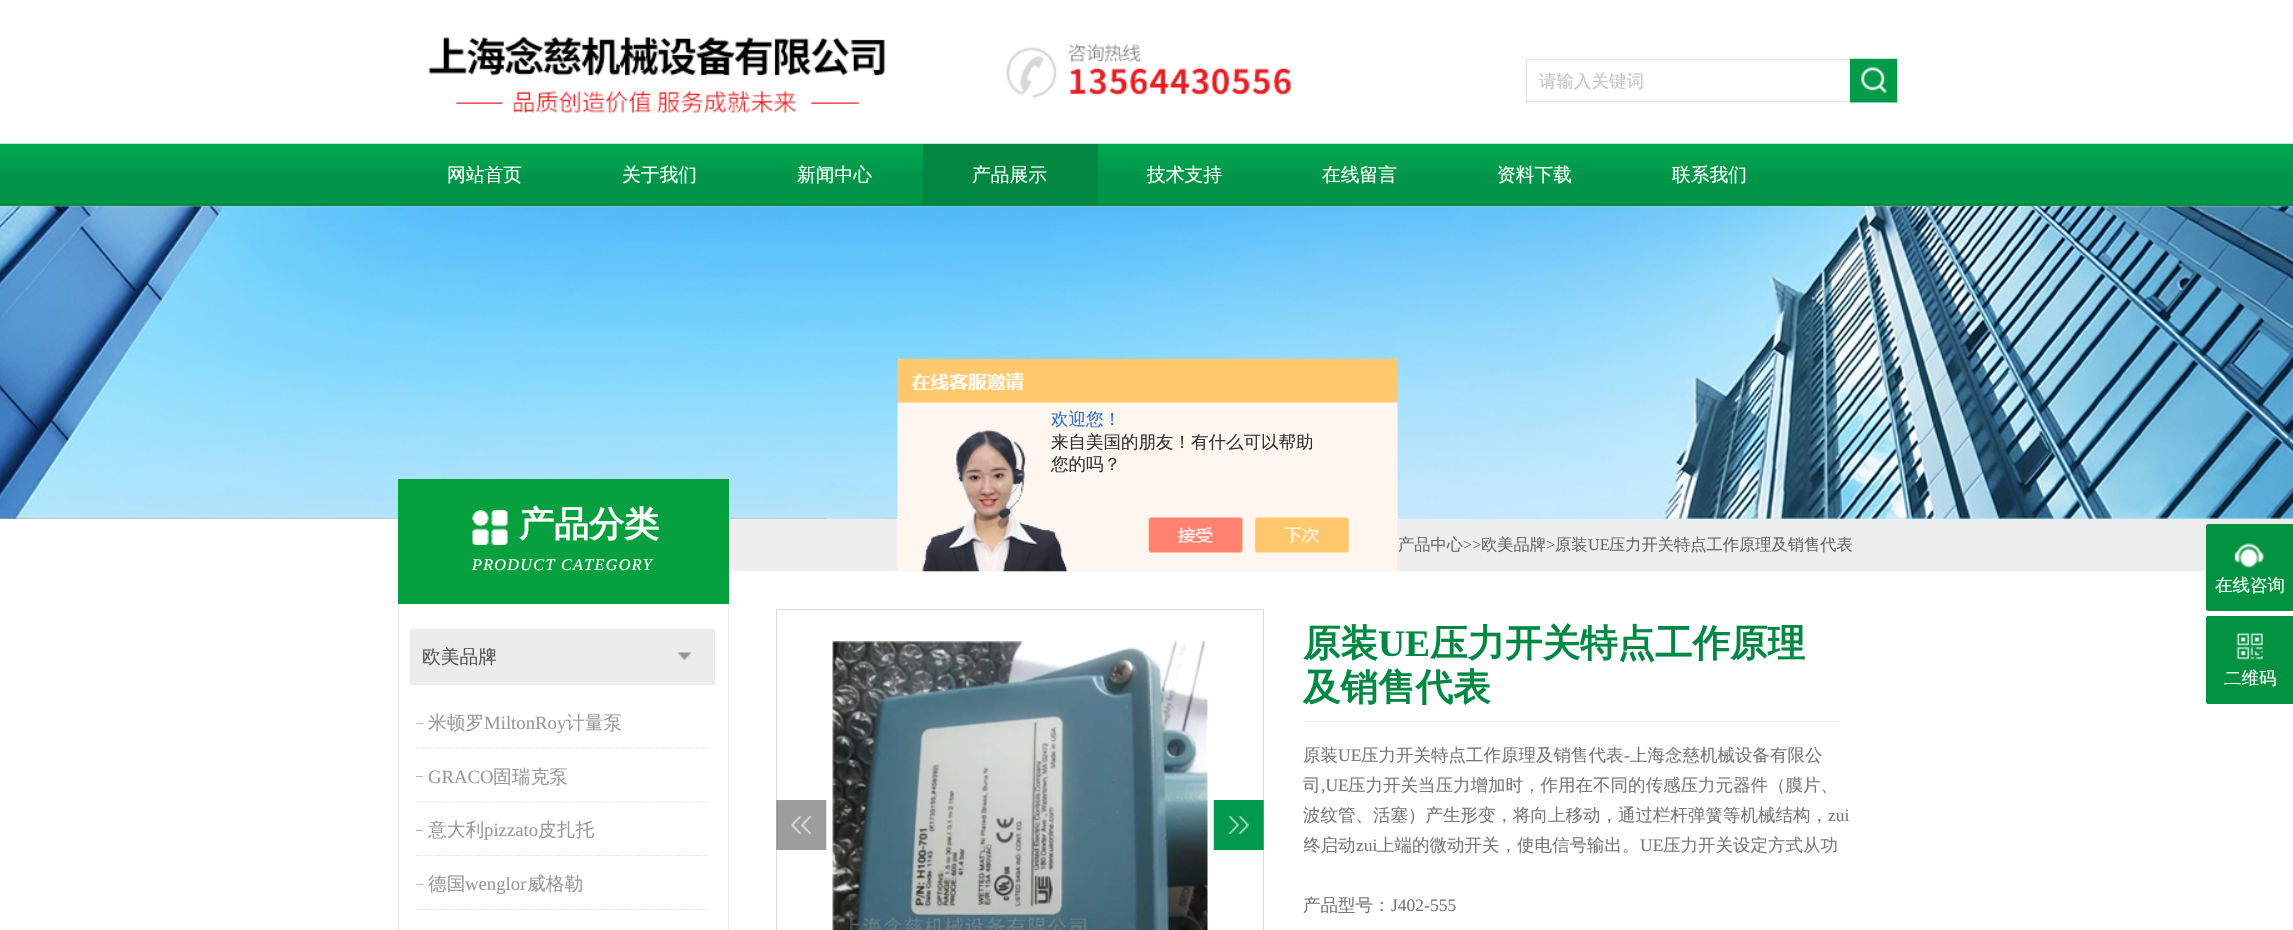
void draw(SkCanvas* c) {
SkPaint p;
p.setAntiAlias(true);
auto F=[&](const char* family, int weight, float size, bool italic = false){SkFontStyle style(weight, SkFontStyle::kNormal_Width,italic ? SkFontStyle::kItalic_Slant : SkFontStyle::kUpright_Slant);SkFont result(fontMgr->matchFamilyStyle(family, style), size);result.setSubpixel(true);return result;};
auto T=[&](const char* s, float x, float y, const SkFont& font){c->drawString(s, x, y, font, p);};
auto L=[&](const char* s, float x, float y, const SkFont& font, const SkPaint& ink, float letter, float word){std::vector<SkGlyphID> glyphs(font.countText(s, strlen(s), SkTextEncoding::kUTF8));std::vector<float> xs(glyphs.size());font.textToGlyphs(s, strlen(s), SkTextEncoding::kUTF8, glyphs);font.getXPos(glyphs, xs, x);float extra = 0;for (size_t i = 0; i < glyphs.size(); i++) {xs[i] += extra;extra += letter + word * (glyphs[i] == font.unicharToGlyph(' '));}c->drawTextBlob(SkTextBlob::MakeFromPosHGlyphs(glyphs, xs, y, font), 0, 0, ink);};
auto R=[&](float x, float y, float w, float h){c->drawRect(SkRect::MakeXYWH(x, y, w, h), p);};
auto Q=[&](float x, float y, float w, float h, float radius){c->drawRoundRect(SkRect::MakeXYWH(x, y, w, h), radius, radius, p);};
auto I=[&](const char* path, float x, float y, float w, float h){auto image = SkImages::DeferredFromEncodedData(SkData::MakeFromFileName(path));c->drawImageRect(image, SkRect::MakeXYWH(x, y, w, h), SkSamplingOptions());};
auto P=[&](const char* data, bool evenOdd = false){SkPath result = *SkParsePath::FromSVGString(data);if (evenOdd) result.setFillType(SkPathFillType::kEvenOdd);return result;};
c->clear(0xffffffff);
I("1.png",893,518,1400,54);
I("2.png",428,36,864,77);
p.setColor(0xffe1e1e1);
R(1526,59,324,1);
R(1526,101,324,1);
R(1526,59,1,44);
auto f1 = F("WenQuanYi Zen Hei",500,17.5);
p.setColor(0xffc5c5c5);
T("请输入关键词",1539,87,f1);
I("3.png",1850,58,48,45);
I("4.png",0,143,2293,64);
auto f2 = F("WenQuanYi Zen Hei",500,18.75);
p.setColor(0xffffffff);
T("网站首页",447,181,f2);
T("关于我们",622,181,f2);
T("新闻中心",797,181,f2);
p.setColor(0xff008742);
R(923,144,175,62);
p.setColor(0xffffffff);
T("产品展示",972,181,f2);
T("技术支持",1147,181,f2);
T("在线留言",1322,181,f2);
T("资料下载",1497,181,f2);
T("联系我们",1672,181,f2);
I("5.png",0,206,2293,313);
p.setColor(0xffeeeeee);
R(729,519,856,52);
I("6.png",897,358,501,214);
p.setColor(0xff2e6ec6);
T("欢迎您！",1051,425,f1);
p.setColor(0xff333333);
T("来自美国的朋友！有什么可以帮助",1051,448,f1);
T("您的吗？",1051,470,f1);
p.setColor(0xff06a03e);
R(398,479,331,125);
I("7.png",472,510,36,35);
auto f3 = F("WenQuanYi Zen Hei",700,35);
p.setColor(0xffffffff);
T("产品分类",519,536,f3);
auto f4 = F("Liberation Serif",400,16.25,true);
L("PRODUCT CATEGORY",472,570,f4,p,1.25,0);
p.setColor(0xffe8e8e8);
R(728,604,1,326);
R(398,604,1,326);
p.setColor(0xffececec);
R(410,629,305,56);
p.setColor(0xff555555);
T("欧美品牌",422,663,f2);
I("8.png",677,652,15,9);
p.setStroke(true);
p.setStrokeWidth(1.2);
p.setColor(0xffdedede);
p.setPathEffect(SkDashPathEffect::Make({{1.25f,1.25f}}, 0));
c->drawPath(P("M416 748h293"),p);
p.setPathEffect(nullptr);
p.setStroke(false);
p.setColor(0xffb3b3b3);
R(416,723,7,1);
p.setColor(0xff999999);
T("米顿罗",428,729,f2);
auto f5 = F("Liberation Serif",400,18.75);
T("MiltonRoy",484,729,f5);
T("计量泵",566,729,f2);
p.setStroke(true);
p.setColor(0xffdedede);
p.setPathEffect(SkDashPathEffect::Make({{1.25f,1.25f}}, 0));
c->drawPath(P("M416 802h293"),p);
p.setPathEffect(nullptr);
p.setStroke(false);
p.setColor(0xffb3b3b3);
R(416,776,7,1);
p.setColor(0xff999999);
T("GRACO",428,783,f5);
T("固瑞克泵",493,783,f2);
p.setStroke(true);
p.setColor(0xffdedede);
p.setPathEffect(SkDashPathEffect::Make({{1.25f,1.25f}}, 0));
c->drawPath(P("M416 855.5h293"),p);
p.setPathEffect(nullptr);
p.setStroke(false);
p.setColor(0xffb3b3b3);
R(416,830,7,1);
p.setColor(0xff999999);
T("意大利",428,836,f2);
T("pizzato",484,836,f5);
T("皮扎托",538,836,f2);
p.setStroke(true);
p.setColor(0xffdedede);
p.setPathEffect(SkDashPathEffect::Make({{1.25f,1.25f}}, 0));
c->drawPath(P("M416 909.5h293"),p);
p.setPathEffect(nullptr);
p.setStroke(false);
p.setColor(0xffb3b3b3);
R(416,884,7,1);
p.setColor(0xff999999);
T("德国",428,890,f2);
T("wenglor",465,890,f5);
T("威格勒",527,890,f2);
auto f6 = F("WenQuanYi Zen Hei",500,16.25);
p.setColor(0xff686868);
T("产品中心",1398,550,f6);
auto f7 = F("Liberation Serif",400,16.25);
T(">>",1463,550,f7);
T("欧美品牌",1481,550,f6);
T(">",1546,550,f7);
T("原装",1555,550,f6);
T("UE",1588,550,f7);
T("压力开关特点工作原理及销售代表",1609,550,f6);
p.setStroke(true);
p.setStrokeWidth(1);
p.setColor(0xffdddddd);
c->drawRect(SkRect::MakeXYWH(776.5,609.5,487,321),p);
I("9.png",832,641,376,289);
I("10.png",776,800,51,50);
I("11.png",1213,800,51,50);
p.setStroke(false);
p.setColor(0xfff3f3f3);
R(1304,721,537,1);
auto f8 = F("WenQuanYi Zen Hei",700,37.5);
p.setColor(0xff008742);
T("原装",1303,656,f8);
auto f9 = F("Liberation Serif",700,37.5);
T("UE",1378,656,f9);
T("压力开关特点工作原理",1430,656,f8);
T("及销售代表",1303,700,f8);
p.setColor(0xff777777);
T("原装",1303,761,f1);
auto f10 = F("Liberation Serif",400,17.5);
T("UE",1338,761,f10);
T("压力开关特点工作原理及销售代表",1361,761,f1);
T("-",1624,761,f10);
T("上海念慈机械设备有限公",1630,761,f1);
T("司",1303,791,f1);
T(",UE",1321,791,f10);
T("压力开关当压力增加时，作用在不同的传感压力元器件（膜片、",1348,791,f1);
T("波纹管、活塞）产生形变，将向上移动，通过栏杆弹簧等机械结构，",1303,821,f1);
T("zui",1828,821,f10);
c->save();
c->clipRect(SkRect::MakeXYWH(1304,741,550,125));
T("终启动",1303,851,f1);
c->restore();
T("zui",1356,851,f10);
T("上端的微动开关，使电信号输出。",1377,851,f1);
T("UE",1640,851,f10);
T("压力开关设定方式从功",1663,851,f1);
T("产品型号：",1303,911,f1);
T("J402-555",1391,911,f10);
p.setColor(0xff009240);
Q(2206,524,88,87,2.5);
I("12.png",2234,543,31,25);
p.setColor(0xffffffff);
T("在线咨询",2215,591,f1);
p.setColor(0xff009240);
Q(2206,616,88,88,2.5);
I("13.png",2236,633,27,27);
p.setColor(0xffffffff);
T("二维码",2224,684,f1);
}
